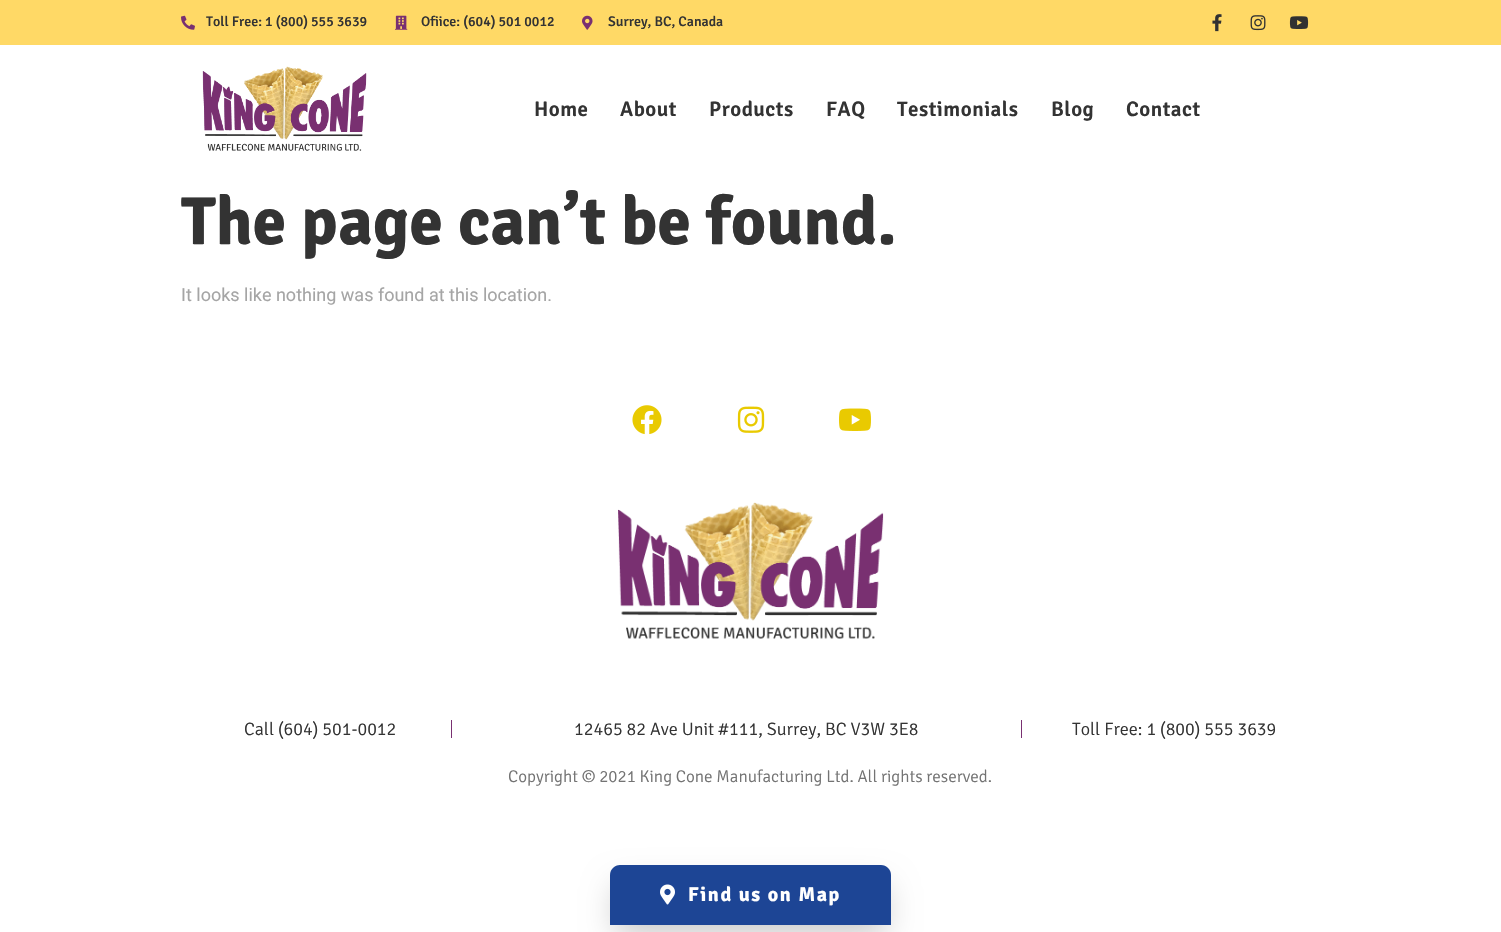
void draw(SkCanvas* c) {
SkPaint p;
p.setAntiAlias(true);
auto F=[&](const char* family, int weight, float size, bool italic = false){SkFontStyle style(weight, SkFontStyle::kNormal_Width,italic ? SkFontStyle::kItalic_Slant : SkFontStyle::kUpright_Slant);SkFont result(fontMgr->matchFamilyStyle(family, style), size);result.setSubpixel(true);return result;};
auto T=[&](const char* s, float x, float y, const SkFont& font){c->drawString(s, x, y, font, p);};
auto L=[&](const char* s, float x, float y, const SkFont& font, const SkPaint& ink, float letter, float word){std::vector<SkGlyphID> glyphs(font.countText(s, strlen(s), SkTextEncoding::kUTF8));std::vector<float> xs(glyphs.size());font.textToGlyphs(s, strlen(s), SkTextEncoding::kUTF8, glyphs);font.getXPos(glyphs, xs, x);float extra = 0;for (size_t i = 0; i < glyphs.size(); i++) {xs[i] += extra;extra += letter + word * (glyphs[i] == font.unicharToGlyph(' '));}c->drawTextBlob(SkTextBlob::MakeFromPosHGlyphs(glyphs, xs, y, font), 0, 0, ink);};
auto R=[&](float x, float y, float w, float h){c->drawRect(SkRect::MakeXYWH(x, y, w, h), p);};
auto I=[&](const char* path, float x, float y, float w, float h){auto image = SkImages::DeferredFromEncodedData(SkData::MakeFromFileName(path));c->drawImageRect(image, SkRect::MakeXYWH(x, y, w, h), SkSamplingOptions());};
auto P=[&](const char* data, bool evenOdd = false){SkPath result = *SkParsePath::FromSVGString(data);if (evenOdd) result.setFillType(SkPathFillType::kEvenOdd);return result;};
c->clear(0xffffffff);
p.setColor(0xffffd966);
R(0,0,1501,45);
I("1.png",181,15,14,15);
auto f1 = F("Signika",500,14);
p.setColor(0xff333333);
T("Toll Free: 1 (800) 555 3639",206,26,f1);
I("2.png",395,15,13,15);
T("Ofiice: (604) 501 0012",421,26,f1);
I("3.png",582,15,11,15);
T("Surrey, BC, Canada",608,26,f1);
I("4.png",1212,14,10,18);
I("5.png",1250,15,16,16);
I("6.png",1289,16,20,13);
I("7.png",202,66,165,85);
auto f2 = F("Signika",600,21);
L("Home",534,116,f2,p,.5,0);
L("About",620,116,f2,p,.5,0);
L("Products",709,116,f2,p,.5,0);
L("FAQ",826,116,f2,p,.5,0);
L("Testimonials",897,116,f2,p,.5,0);
L("Blog",1051,116,f2,p,.5,0);
L("Contact",1126,116,f2,p,.5,0);
auto f3 = F("Signika",700,68);
T("The page can’t be found.",181,244,f3);
auto f4 = F("Roboto",400,18);
p.setColor(0xffa5a5a5);
T("It looks like nothing was found at this location.",181,301,f4);
I("8.png",632,405,30,30);
I("9.png",737,406,28,27);
I("10.png",839,408,32,23);
I("11.png",618,502,266,137);
p.setColor(0xff793071);
R(451,720,1,18);
auto f5 = F("Signika",300,18);
p.setColor(0xff333333);
T("Call (604) 501-0012",244,735,f5);
p.setColor(0xff793071);
R(1021,720,1,18);
p.setColor(0xff333333);
T("12465 82 Ave Unit #111, Surrey, BC V3W 3E8",574,735,f5);
T("Toll Free: 1 (800) 555 3639",1072,735,f5);
auto f6 = F("Signika",300,17);
p.setColor(0xff737373);
T("Copyright © 2021 King Cone Manufacturing Ltd. All rights reserved.",508,782,f6);
p.setColor(0x38000000);
p.setMaskFilter(SkMaskFilter::MakeBlur(kNormal_SkBlurStyle, 16));
c->drawRoundRect(SkRect::MakeXYWH(616,886,269,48),4,4,p);
p.setMaskFilter(nullptr);
p.setColor(0xff1d4595);
c->drawPath(P("M620 865h261c5.5 0 10 4.5 10 10v50h-281v-50c0-5.5 4.5-10 10-10z"),p);
I("12.png",660,884,15,21);
auto f7 = F("Signika",700,20);
p.setColor(0xffffffff);
L("Find us on Map",688,901,f7,p,1.6,0);
}
